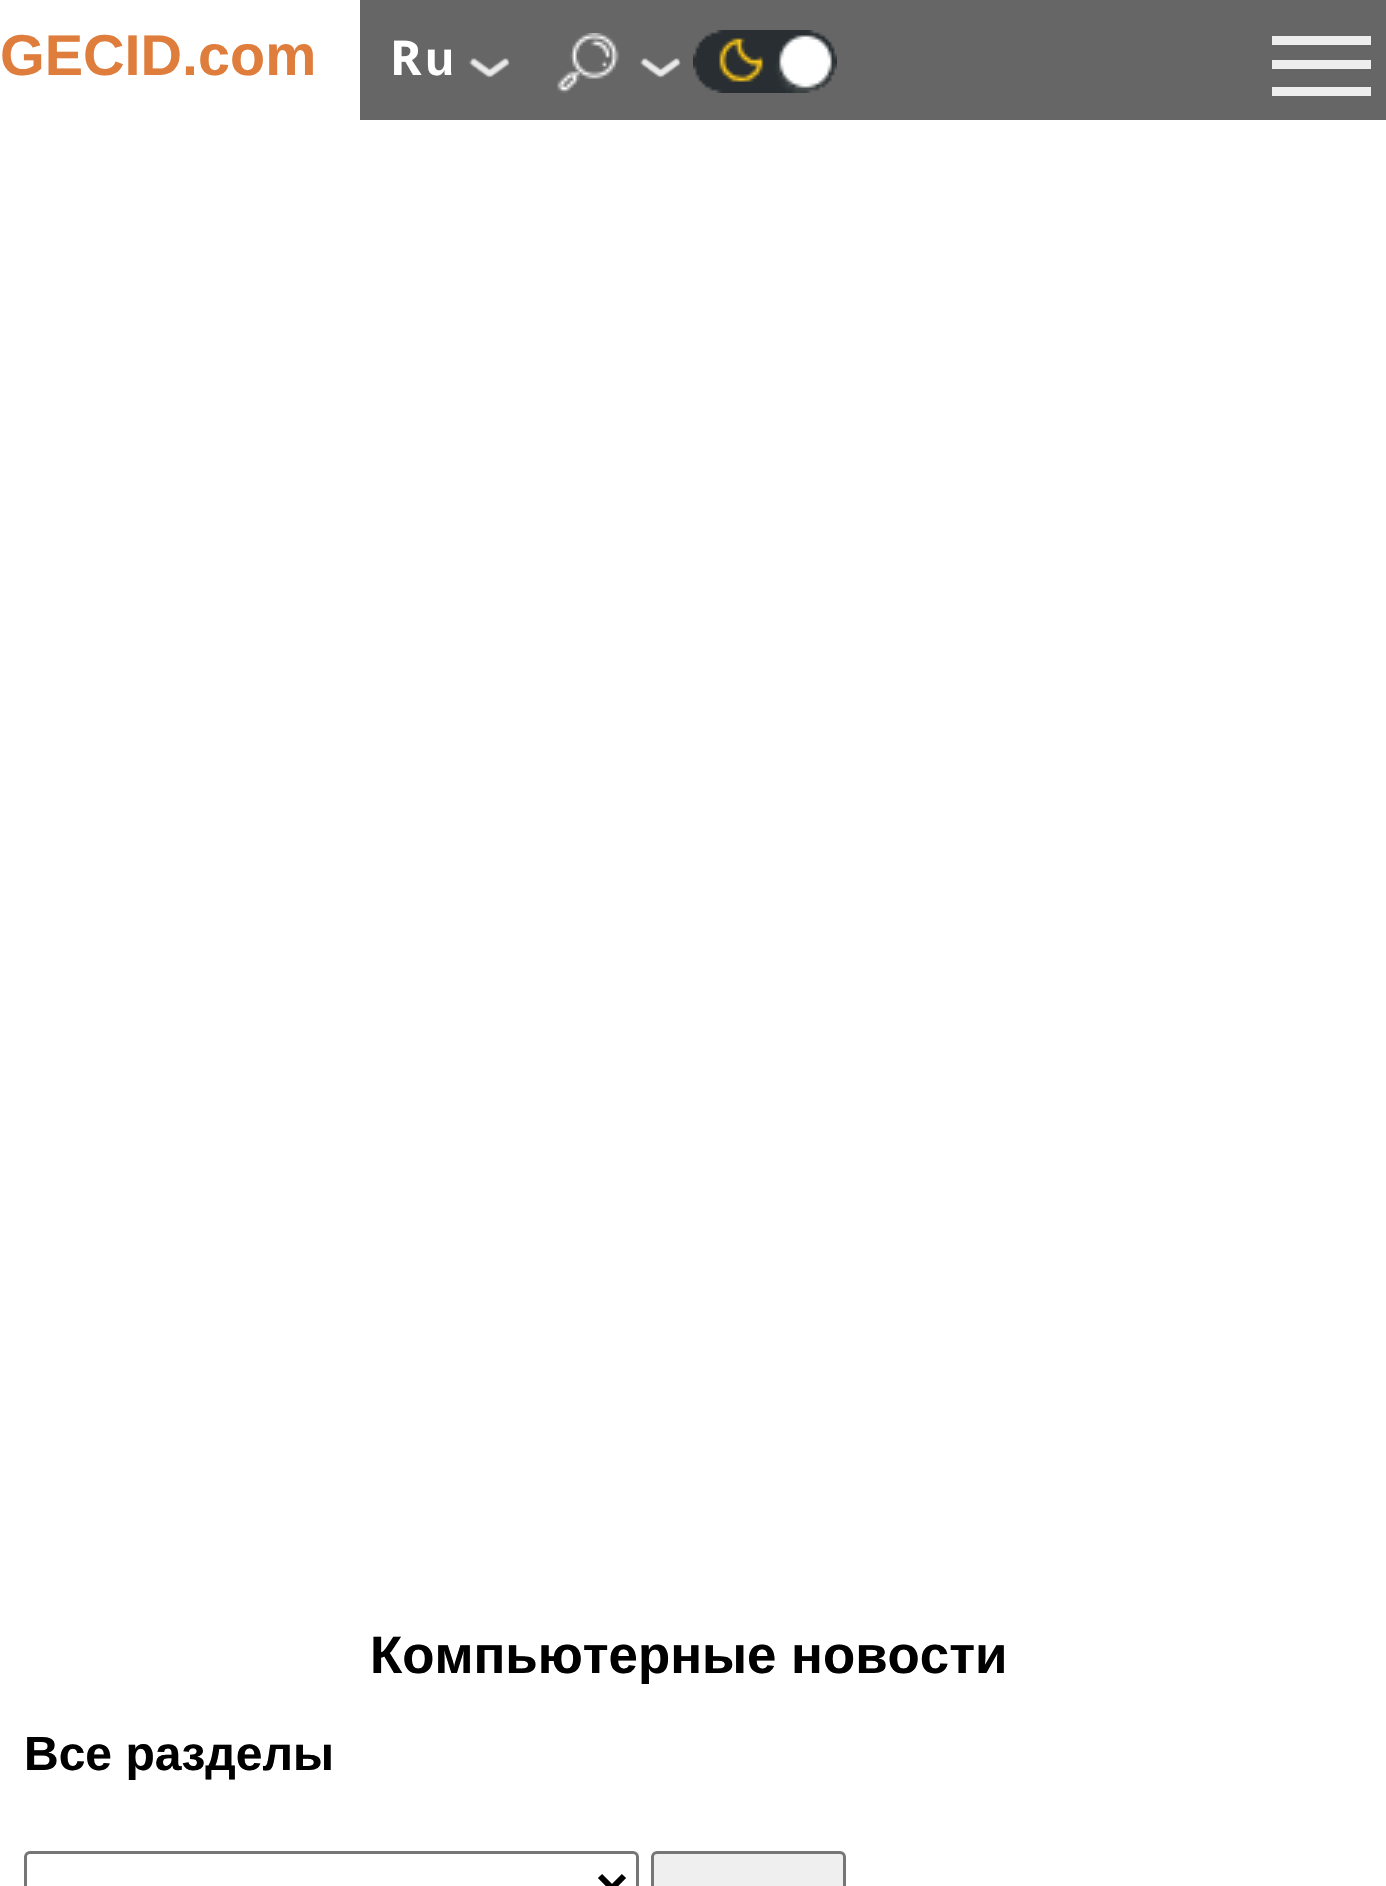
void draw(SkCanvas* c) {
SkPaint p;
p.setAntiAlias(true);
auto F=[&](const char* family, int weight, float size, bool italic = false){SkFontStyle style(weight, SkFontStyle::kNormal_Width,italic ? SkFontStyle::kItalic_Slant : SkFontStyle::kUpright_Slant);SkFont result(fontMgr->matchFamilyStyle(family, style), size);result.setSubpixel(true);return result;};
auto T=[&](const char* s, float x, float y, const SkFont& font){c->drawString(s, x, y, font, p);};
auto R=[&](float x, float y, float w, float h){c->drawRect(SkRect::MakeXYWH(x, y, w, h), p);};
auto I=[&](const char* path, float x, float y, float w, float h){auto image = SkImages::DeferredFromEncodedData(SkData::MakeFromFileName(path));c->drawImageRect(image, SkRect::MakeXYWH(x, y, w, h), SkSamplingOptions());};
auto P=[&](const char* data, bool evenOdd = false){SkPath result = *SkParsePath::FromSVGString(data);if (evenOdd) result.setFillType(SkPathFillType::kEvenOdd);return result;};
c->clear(0xffffffff);
p.setColor(0xff666666);
R(360,0,1026,120);
auto f1 = F("Liberation Sans",700,57.5);
p.setColor(0xffdf7d3c);
T("GECID.com",0,75,f1);
auto f2 = F("Noto Sans",700,48);
p.setColor(0xffffffff);
T("R",390,75,f2);
auto f3 = F("Liberation Sans",700,48);
T("u",425,75,f3);
I("1.png",469,58,41,20);
I("2.png",557,33,62,60);
I("1.png",640,58,41,20);
I("3.png",693,30,144,63);
p.setColor(0xffeeeeee);
R(1272,60,99,9);
R(1272,36,99,9);
R(1272,87,99,9);
auto f4 = F("Liberation Sans",700,52.75);
p.setColor(0xff000000);
T("Компьютерные новости",370,1673,f4);
T("Все разделы",24,1770,f3);
p.setStroke(true);
p.setStrokeWidth(3);
p.setColor(0xff767676);
c->drawRoundRect(SkRect::MakeXYWH(25.5,1852.5,612,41),4.5,4.5,p);
p.setStrokeWidth(6);
p.setColor(0xff000000);
c->drawPath(P("M600 1876l12 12l12-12"),p);
p.setStroke(false);
p.setColor(0xffefefef);
c->drawRoundRect(SkRect::MakeXYWH(652.5,1852.5,192,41),4.5,4.5,p);
p.setStroke(true);
p.setStrokeWidth(3);
p.setColor(0xff767676);
c->drawRoundRect(SkRect::MakeXYWH(652.5,1852.5,192,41),4.5,4.5,p);
}
